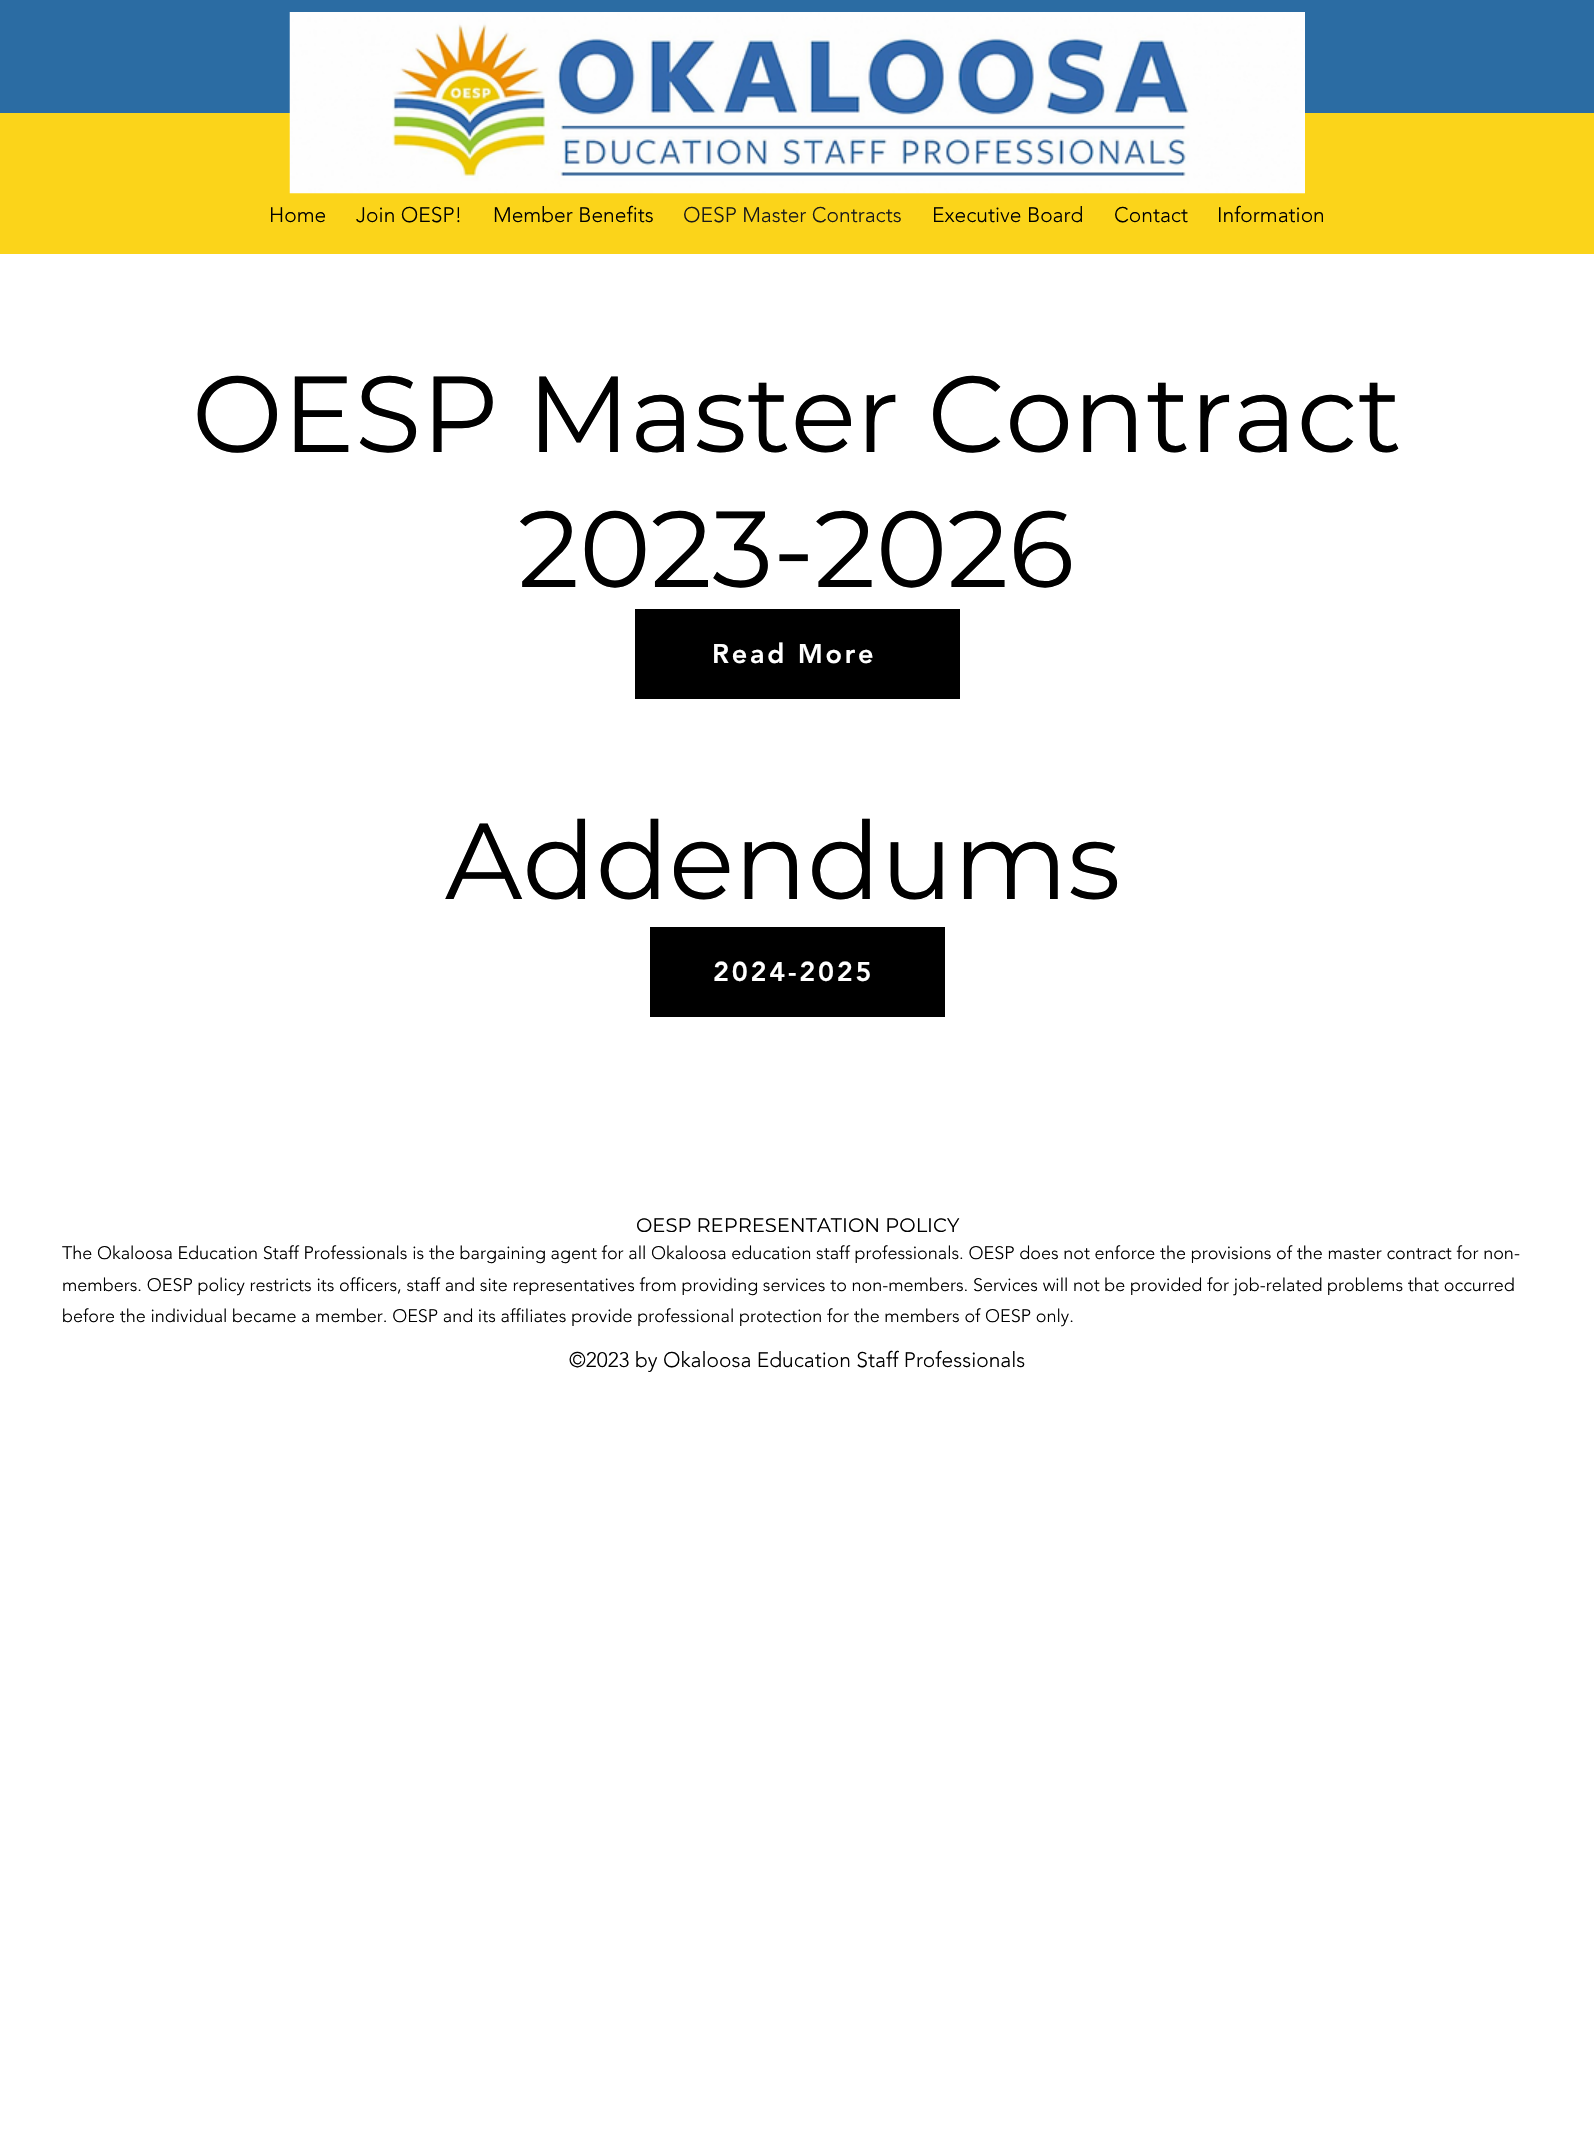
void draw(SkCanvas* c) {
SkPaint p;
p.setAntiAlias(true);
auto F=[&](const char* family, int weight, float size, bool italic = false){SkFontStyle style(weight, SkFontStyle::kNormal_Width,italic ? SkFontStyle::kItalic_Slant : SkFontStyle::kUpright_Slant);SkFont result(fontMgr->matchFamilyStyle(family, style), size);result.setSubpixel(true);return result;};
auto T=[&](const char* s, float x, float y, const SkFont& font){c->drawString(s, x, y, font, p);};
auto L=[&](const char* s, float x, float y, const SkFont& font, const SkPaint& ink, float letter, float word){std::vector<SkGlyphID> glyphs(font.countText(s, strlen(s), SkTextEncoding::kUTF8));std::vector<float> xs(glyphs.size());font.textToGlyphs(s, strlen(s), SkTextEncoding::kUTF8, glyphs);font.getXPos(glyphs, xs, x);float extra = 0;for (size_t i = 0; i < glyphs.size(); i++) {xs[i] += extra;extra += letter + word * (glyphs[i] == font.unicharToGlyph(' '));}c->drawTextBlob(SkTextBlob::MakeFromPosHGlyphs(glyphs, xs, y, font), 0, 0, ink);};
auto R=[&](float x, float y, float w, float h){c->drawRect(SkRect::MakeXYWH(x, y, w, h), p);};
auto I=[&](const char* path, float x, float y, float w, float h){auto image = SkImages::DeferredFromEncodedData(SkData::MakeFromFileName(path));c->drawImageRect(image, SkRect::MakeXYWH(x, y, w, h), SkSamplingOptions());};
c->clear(0xffffffff);
p.setColor(0xff2b6ca3);
R(0,0,1594,113);
p.setColor(0xfffbd41a);
R(0,113,1594,141);
I("1.png",289,12,1016,182);
auto f1 = F("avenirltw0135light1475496",300,21);
p.setColor(0xff000000);
T("Home",269,222,f1);
T("Join OESP!",356,222,f1);
T("Member Benefits",493,222,f1);
p.setColor(0xff191919);
T("OESP Master Contracts",683,222,f1);
p.setColor(0xff000000);
T("Executive Board",932,222,f1);
T("Contact",1114,222,f1);
T("Information",1217,222,f1);
auto f2 = F("Montserrat",400,108);
T("OESP Master Contract",192,452,f2);
T("2023-2026",518,587,f2);
R(635,609,325,90);
auto f3 = F("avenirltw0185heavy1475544",900,27);
p.setColor(0xffffffff);
L("Read More",712,663,f3,p,2.75,0);
p.setColor(0xff000000);
T("Addendums",445,899,f2);
R(650,927,295,90);
p.setColor(0xffffffff);
L("2024-2025",713,981,f3,p,2.75,0);
auto f4 = F("Montserrat",400,19.5);
p.setColor(0xff000000);
T("OESP REPRESENTATION POLICY",636,1232,f4);
auto f5 = F("avenirltw0135light1475496",300,18);
T("The Okaloosa Education Staff Professionals is the bargaining agent for all Okaloosa education staff professionals. OESP does not enforce the provisions of the master contract for non-",62,1259,f5);
T("members. OESP policy restricts its officers, staff and site representatives from providing services to non-members. Services will not be provided for job-related problems that occurred",62,1291,f5);
T("before the individual became a member. OESP and its affiliates provide professional protection for the members of OESP only.",62,1322,f5);
T("©2023 by Okaloosa Education Staff Professionals",569,1367,f1);
}
